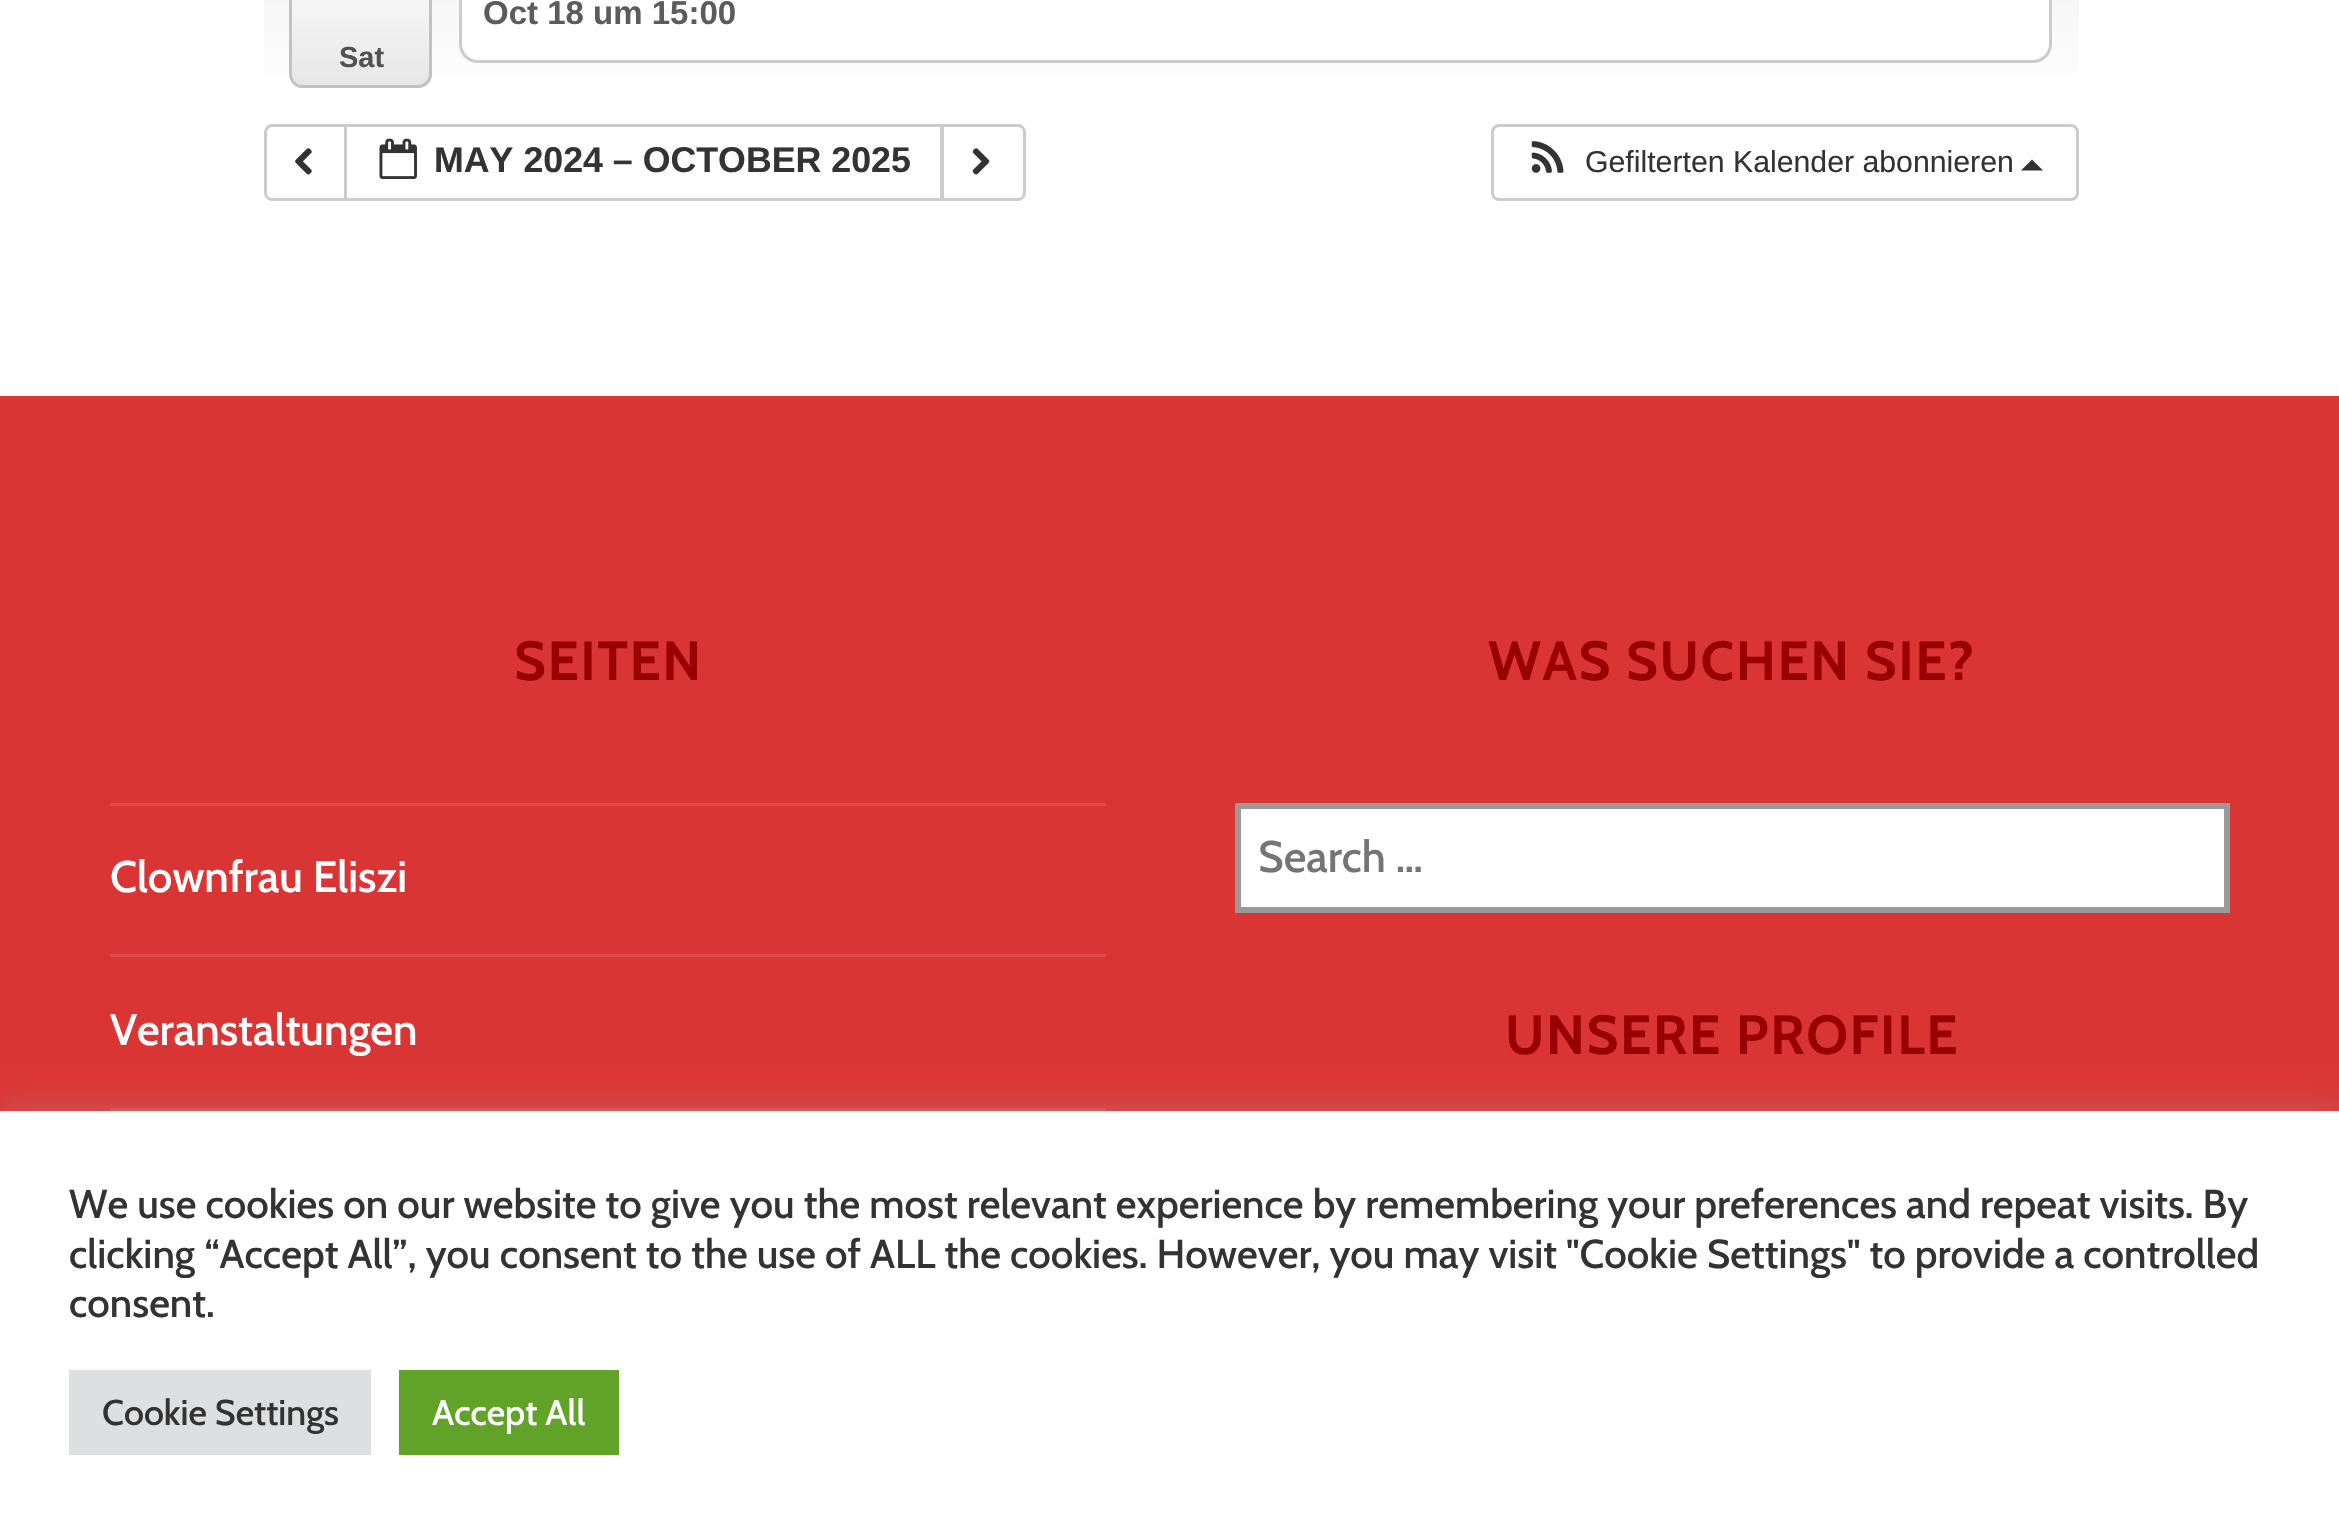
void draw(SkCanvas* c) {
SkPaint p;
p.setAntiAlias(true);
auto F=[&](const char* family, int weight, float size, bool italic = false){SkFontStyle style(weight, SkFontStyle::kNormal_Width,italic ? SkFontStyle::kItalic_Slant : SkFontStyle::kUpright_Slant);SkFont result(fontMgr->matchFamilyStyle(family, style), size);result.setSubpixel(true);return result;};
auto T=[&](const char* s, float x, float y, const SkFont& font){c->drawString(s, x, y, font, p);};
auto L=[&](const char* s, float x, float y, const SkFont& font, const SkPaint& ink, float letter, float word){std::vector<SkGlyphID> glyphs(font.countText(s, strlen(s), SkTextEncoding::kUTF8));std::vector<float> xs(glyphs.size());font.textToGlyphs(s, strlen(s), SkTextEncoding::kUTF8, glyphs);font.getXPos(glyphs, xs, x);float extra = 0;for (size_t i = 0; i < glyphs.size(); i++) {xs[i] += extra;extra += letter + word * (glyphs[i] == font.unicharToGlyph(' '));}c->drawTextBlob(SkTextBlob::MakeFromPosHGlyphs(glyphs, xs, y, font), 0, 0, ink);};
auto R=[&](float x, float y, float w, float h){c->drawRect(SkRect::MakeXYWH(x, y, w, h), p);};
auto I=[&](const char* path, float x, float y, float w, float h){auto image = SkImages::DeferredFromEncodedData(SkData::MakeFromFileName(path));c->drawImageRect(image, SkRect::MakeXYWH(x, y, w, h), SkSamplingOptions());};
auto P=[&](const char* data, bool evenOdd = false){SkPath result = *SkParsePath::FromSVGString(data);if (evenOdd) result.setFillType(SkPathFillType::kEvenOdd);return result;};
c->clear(0xffffffff);
{
const SkColor colors[] = {0xfff2f2f2,0xfff2f2f2,0xffffffff};
const float stops[] = {0,.17,1};
const SkPoint ends[] = {{1172,-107}, {1172,107}};
p.setShader(SkGradientShader::MakeLinear(ends, colors, stops, 3, SkTileMode::kClamp));
p.setAlpha(255);
}
R(264,0,1815,73);
p.setShader(nullptr);
p.setColor(0xffffffff);
c->drawRoundRect(SkRect::MakeXYWH(460.5,-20.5,1590,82),17.5,17.5,p);
p.setStroke(true);
p.setStrokeWidth(3);
p.setColor(0xffcccccc);
c->drawRoundRect(SkRect::MakeXYWH(460.5,-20.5,1590,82),17.5,17.5,p);
auto f1 = F("Liberation Sans",700,33);
p.setStroke(false);
p.setColor(0xff5c5c5c);
T("Oct 18 um 15:00",483,24,f1);
c->save();
c->clipPath(P("M303-91h115c7.5 0 14 6.5 14 14v151c0 7.5-6.5 14-14 14h-115c-7.5 0-14-6.5-14-14v-151c0-7.5 6.5-14 14-14z"),true);
{
const SkColor colors[] = {0xffffffff,0xffffffff,0xffe7e7e7};
const float stops[] = {0,.2,1};
const SkPoint ends[] = {{360,-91}, {360,85}};
p.setShader(SkGradientShader::MakeLinear(ends, colors, stops, 3, SkTileMode::kClamp));
p.setAlpha(255);
}
R(292,0,137,85);
c->restore();
p.setShader(nullptr);
p.setColor(0xffc2c2c2);
c->drawPath(P("M302-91h116c8 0 14 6 14 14v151c0 8-6 14-14 14h-116c-7 0-13-6-13-14v-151c0-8 6-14 13-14zm0 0h116c6 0 11 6 11 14v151c0 6-5 11-11 11h-116c-6 0-10-5-10-11v-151c0-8 4-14 10-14z",true),p);
auto f2 = F("Liberation Sans",700,29);
p.setColor(0xff525252);
T("Sat",339,67,f2);
p.setStroke(true);
p.setColor(0xffcccccc);
c->drawPath(P("M272 125.5h73.5v74h-73.5c-3.5 0-6.5-3-6.5-6.5v-61c0-3.5 3-6.5 6.5-6.5z"),p);
I("1.png",295,148,17,27);
c->drawRect(SkRect::MakeXYWH(345.5,125.5,596,74),p);
I("2.png",379,138,38,41);
auto f3 = F("Liberation Sans",700,35.75);
p.setStroke(false);
p.setColor(0xff333333);
T("MAY 2024 – OCTOBER 2025",434,172,f3);
p.setColor(0xffffffff);
c->drawPath(P("M942.5 125.5h75.5c3.5 0 6.5 3 6.5 6.5v61c0 3.5-3 6.5-6.5 6.5h-75.5z"),p);
p.setStroke(true);
p.setColor(0xffcccccc);
c->drawPath(P("M942.5 125.5h75.5c3.5 0 6.5 3 6.5 6.5v61c0 3.5-3 6.5-6.5 6.5h-75.5z"),p);
I("3.png",972,148,18,27);
c->drawRoundRect(SkRect::MakeXYWH(1492.5,125.5,585,74),6.5,6.5,p);
I("4.png",1531,141,33,32);
auto f4 = F("Liberation Sans",400,30.25);
p.setStroke(false);
p.setColor(0xff333333);
T("Gefilterten Kalender abonnieren",1585,172,f4);
c->drawPath(P("M2043 170.5h-22l11-11z"),p);
p.setColor(0xffda3535);
R(0,396,2339,715);
auto f5 = F("Cabin",700,55);
p.setColor(0xff990000);
L("SEITEN",514,680,f5,p,1.6,0);
p.setColor(0xffde4949);
R(110,803,996,3);
auto f6 = F("Cabin",500,44);
p.setColor(0xffffffff);
T("Clownfrau Eliszi",110,892,f6);
p.setColor(0xffde4949);
R(110,954,996,3);
p.setColor(0xffffffff);
T("Veranstaltungen",110,1045,f6);
p.setColor(0xffde4949);
R(110,1108,996,3);
p.setColor(0xff990000);
L("WAS SUCHEN SIE?",1488,680,f5,p,1.6,0);
p.setColor(0xffffffff);
c->drawRect(SkRect::MakeXYWH(1238,806,989,104),p);
p.setStroke(true);
p.setStrokeWidth(6);
p.setColor(0xff999999);
c->drawRect(SkRect::MakeXYWH(1238,806,989,104),p);
p.setStroke(false);
p.setColor(0xff757575);
T("Search …",1258,872,f6);
p.setColor(0xff990000);
L("UNSERE PROFILE",1505,1054,f5,p,1.6,0);
p.setColor(0x4dacabab);
p.setMaskFilter(SkMaskFilter::MakeBlur(kNormal_SkBlurStyle, 14));
c->drawRect(SkRect::MakeXYWH(0,1108,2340,427),p);
p.setMaskFilter(nullptr);
p.setColor(0xffffffff);
R(0,1111,2339,425);
auto f7 = F("Cabin",500,40.33);
p.setColor(0xff333333);
T("We use cookies on our website to give you the most relevant experience by remembering your preferences and repeat visits. By",69,1218,f7);
T("clicking “Accept All”, you consent to the use of ALL the cookies. However, you may visit \"Cookie Settings\" to provide a controlled",69,1268,f7);
T("consent.",69,1317,f7);
p.setColor(0xffdedfe0);
R(69,1370,302,85);
auto f8 = F("Cabin",500,35.75);
p.setColor(0xff333333);
T("Cookie Settings",102,1425,f8);
p.setColor(0xff61a229);
R(399,1370,220,85);
p.setColor(0xffffffff);
T("Accept All",432,1425,f8);
}
